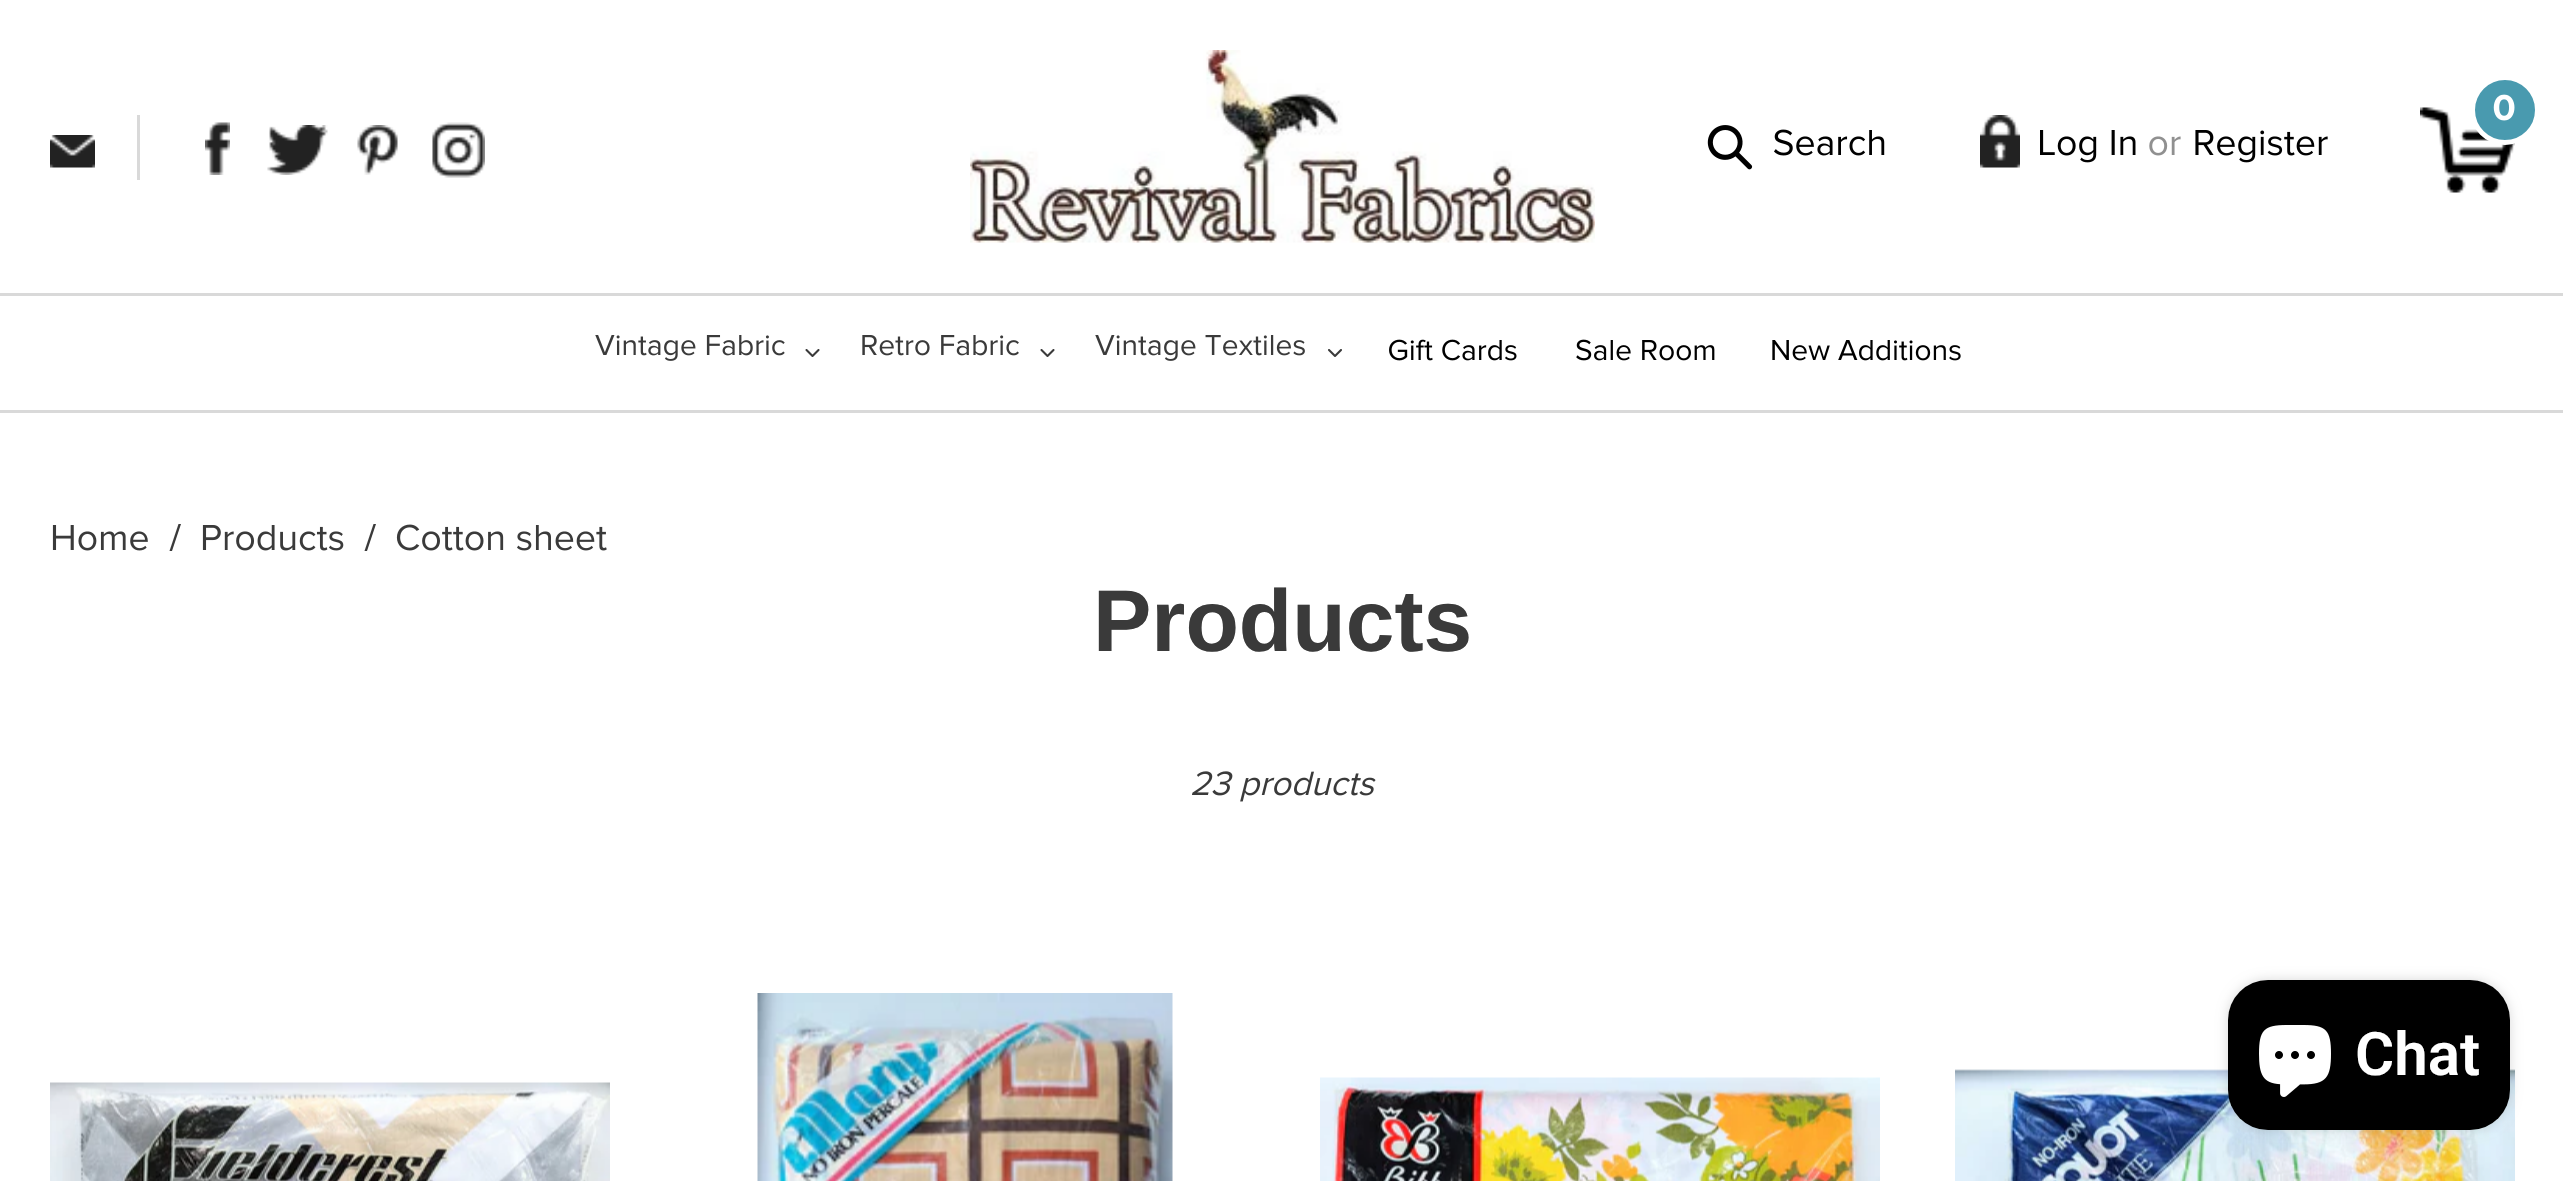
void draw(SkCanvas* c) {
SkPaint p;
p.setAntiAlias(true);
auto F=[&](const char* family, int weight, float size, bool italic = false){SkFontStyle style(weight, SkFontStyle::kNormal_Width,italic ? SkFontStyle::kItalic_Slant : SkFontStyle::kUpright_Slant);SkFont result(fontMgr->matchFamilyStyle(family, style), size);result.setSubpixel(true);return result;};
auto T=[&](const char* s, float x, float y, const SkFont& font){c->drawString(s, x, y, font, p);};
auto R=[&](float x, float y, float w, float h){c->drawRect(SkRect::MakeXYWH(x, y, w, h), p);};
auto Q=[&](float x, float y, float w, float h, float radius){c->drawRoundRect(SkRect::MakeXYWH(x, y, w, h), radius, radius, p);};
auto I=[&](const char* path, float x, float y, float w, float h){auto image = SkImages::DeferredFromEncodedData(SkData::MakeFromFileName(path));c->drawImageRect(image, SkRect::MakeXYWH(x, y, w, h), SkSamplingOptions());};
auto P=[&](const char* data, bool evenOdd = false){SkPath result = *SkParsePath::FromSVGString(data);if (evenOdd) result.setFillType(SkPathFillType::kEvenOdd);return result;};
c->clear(0xffffffff);
I("1.png",50,135,45,33);
p.setColor(0xffd9d9d9);
R(137,115,3,65);
I("2.png",205,122,25,53);
I("3.png",267,125,61,50);
I("4.png",357,125,41,50);
I("5.png",432,122,53,56);
I("6.png",970,50,625,193);
I("7.png",1707,125,46,45);
I("8.png",1774,129,111,27);
I("9.png",1980,115,40,53);
I("10.png",2040,130,96,33);
I("11.png",2149,136,32,20);
I("12.png",2195,130,133,33);
I("14.png",2420,107,95,86);
p.setColor(0xff499aaf);
c->drawCircle(2505,110,32.5,p);
p.setStroke(true);
p.setStrokeWidth(5);
p.setColor(0xffffffff);
c->drawCircle(2505,110,32.5,p);
I("13.png",2493,94,22,27);
p.setStroke(false);
p.setColor(0xffd9d9d9);
R(0,410,2563,3);
R(0,293,2563,3);
I("15.png",595,335,190,26);
I("16.png",805,349,15,8);
I("17.png",862,335,157,21);
I("16.png",1040,349,15,8);
I("18.png",1095,335,210,26);
I("19.png",1328,349,14,8);
I("20.png",1389,339,128,22);
I("21.png",1576,339,139,22);
I("22.png",1772,340,189,21);
I("23.png",52,525,96,26);
p.setColor(0xff3a3a3a);
c->drawPath(P("M172 551h-2.5l9-27h2.5z"),p);
I("24.png",202,525,142,26);
c->drawPath(P("M367 551h-2.5l9-27h2.5z"),p);
I("25.png",396,524,211,27);
auto f1 = F("Liberation Sans",700,87.5);
T("Products",1093,651,f1);
I("26.png",1192,771,184,31);
I("27.png",50,1082,560,99);
I("28.png",757,993,416,188);
I("29.png",1320,1077,560,104);
I("30.png",1955,1069,560,112);
p.setColor(0x26000000);
p.setMaskFilter(SkMaskFilter::MakeBlur(kNormal_SkBlurStyle, 6));
c->drawRoundRect(SkRect::MakeXYWH(2228,980,282,150),40,40,p);
p.setMaskFilter(nullptr);
p.setColor(0xff000000);
Q(2228,980,282,150,40);
I("31.png",2259,1025,72,72);
auto f2 = F("Roboto",600,60);
p.setColor(0xffffffff);
T("Chat",2355,1075,f2);
}
